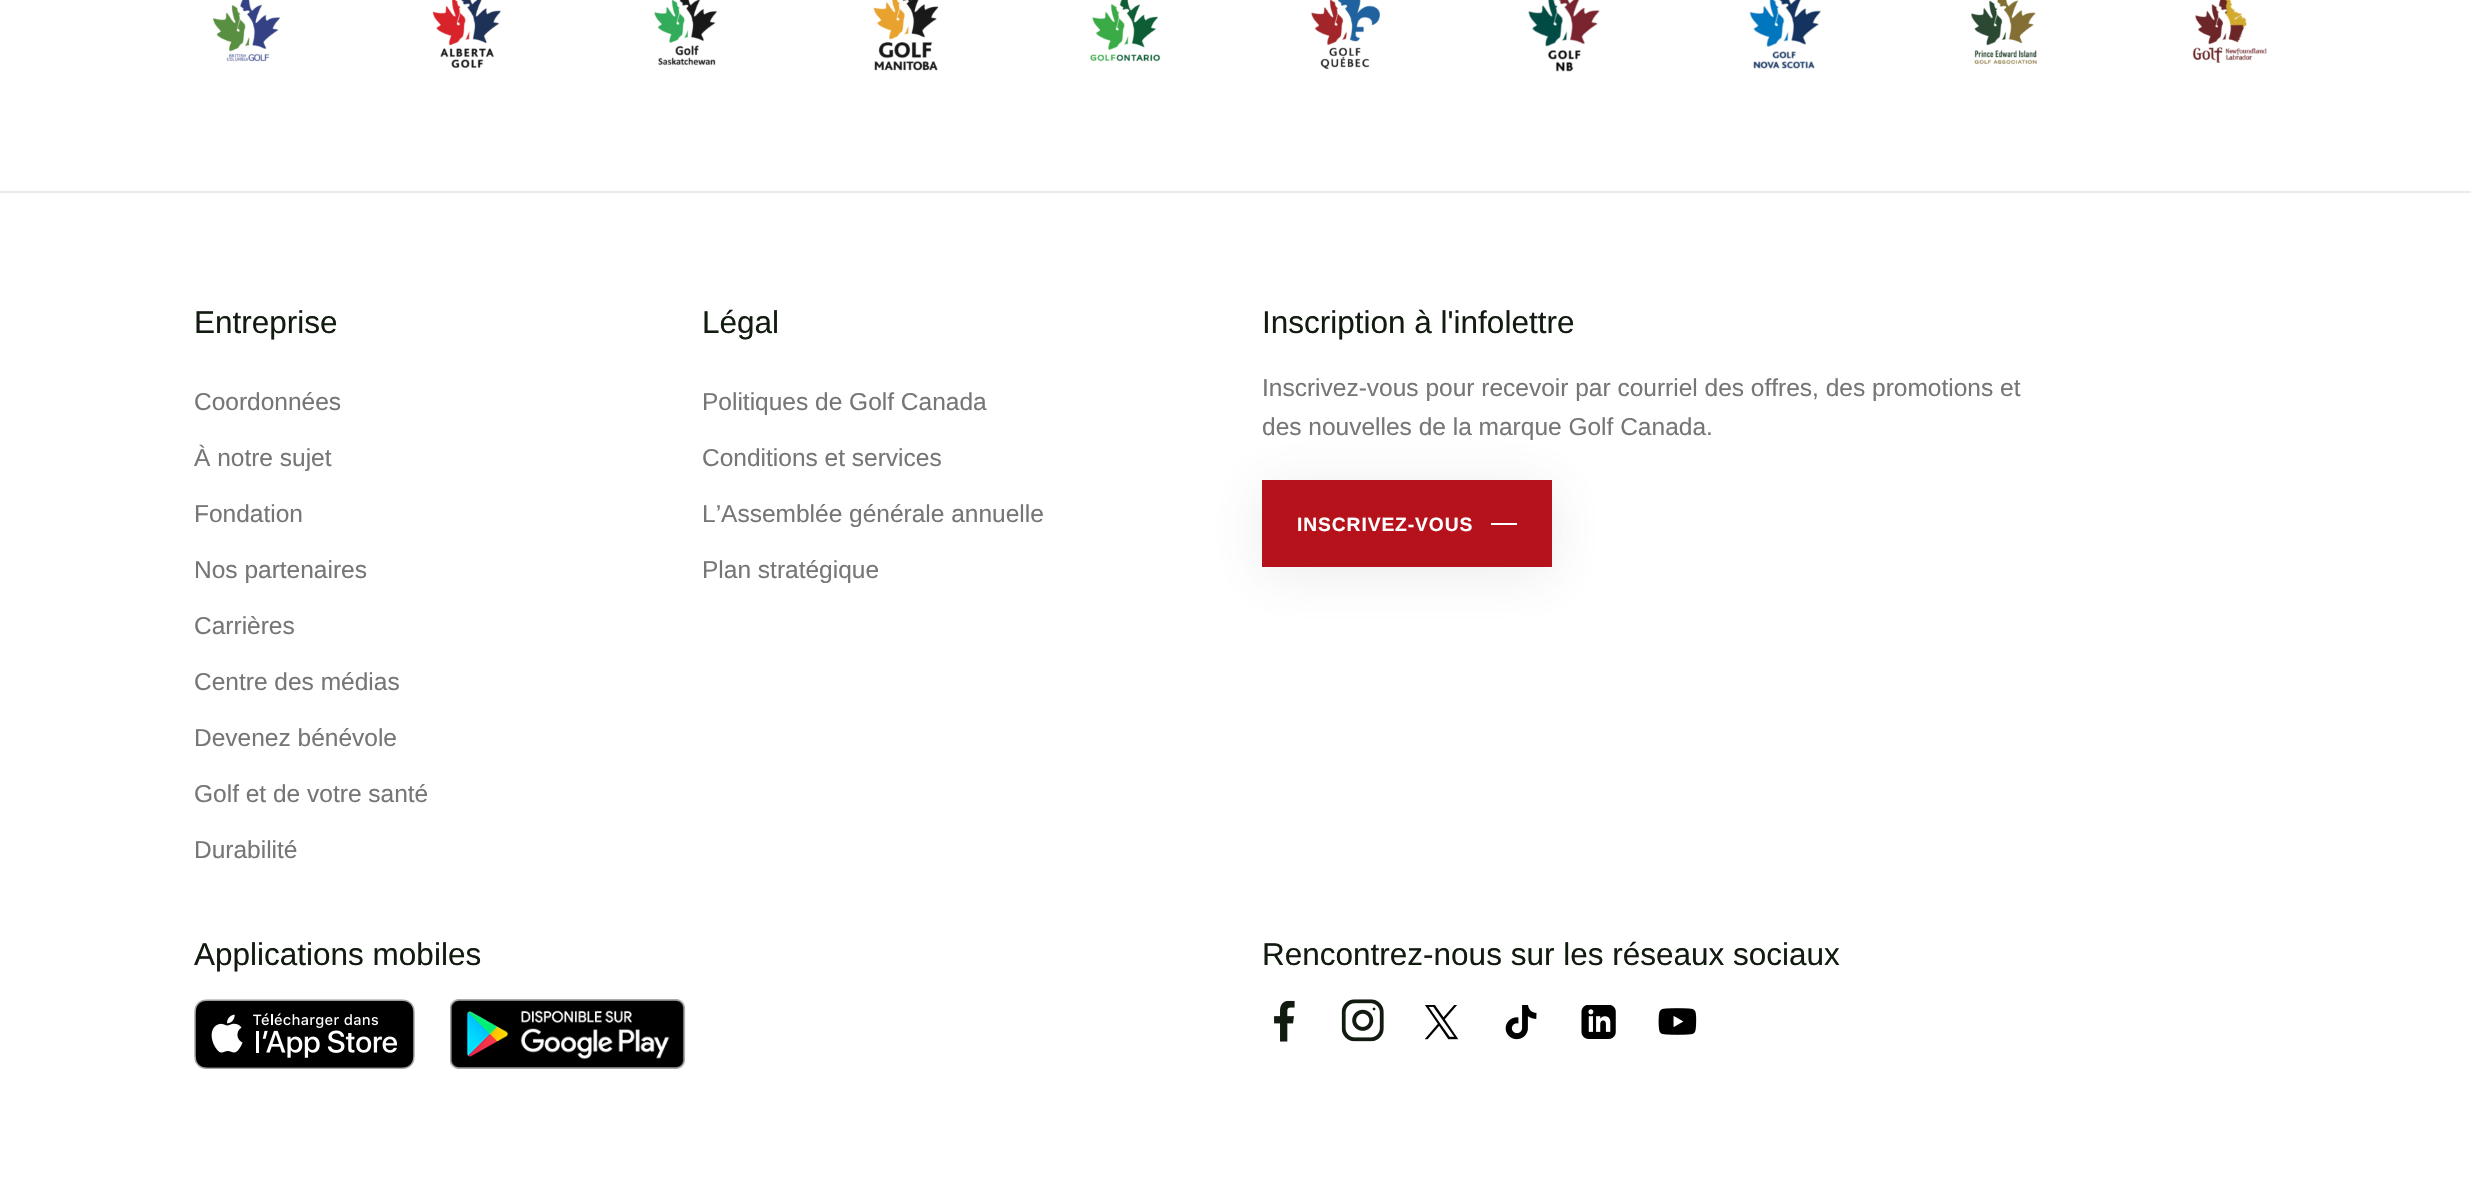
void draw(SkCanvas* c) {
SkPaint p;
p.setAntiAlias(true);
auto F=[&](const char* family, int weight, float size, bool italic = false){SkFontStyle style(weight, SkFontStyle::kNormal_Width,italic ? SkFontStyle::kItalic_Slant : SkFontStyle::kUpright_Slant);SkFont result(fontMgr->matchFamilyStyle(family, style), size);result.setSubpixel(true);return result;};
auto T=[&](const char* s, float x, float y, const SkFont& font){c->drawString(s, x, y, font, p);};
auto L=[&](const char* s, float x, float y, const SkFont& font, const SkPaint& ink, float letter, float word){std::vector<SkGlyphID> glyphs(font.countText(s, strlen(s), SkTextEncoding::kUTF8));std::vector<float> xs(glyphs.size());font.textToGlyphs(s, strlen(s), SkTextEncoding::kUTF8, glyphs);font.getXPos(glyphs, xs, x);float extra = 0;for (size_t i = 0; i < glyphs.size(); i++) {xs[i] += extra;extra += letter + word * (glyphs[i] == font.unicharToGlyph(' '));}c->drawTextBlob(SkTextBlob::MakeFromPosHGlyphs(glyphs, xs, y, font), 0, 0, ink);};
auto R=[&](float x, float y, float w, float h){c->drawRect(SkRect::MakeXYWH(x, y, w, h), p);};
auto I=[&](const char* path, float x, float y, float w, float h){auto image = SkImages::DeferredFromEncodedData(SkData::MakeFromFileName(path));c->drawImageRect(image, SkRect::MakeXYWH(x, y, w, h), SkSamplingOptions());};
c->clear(0xffffffff);
I("1.png",212,0,69,62);
I("2.png",432,0,69,68);
I("3.png",654,0,63,66);
I("4.png",873,0,66,71);
I("5.png",1090,0,71,62);
I("6.png",1311,0,70,70);
I("7.png",1528,0,72,72);
I("8.png",1749,0,72,69);
I("9.png",1971,0,66,65);
I("10.png",2192,0,75,63);
p.setColor(0xffeaeaea);
R(0,191,2471,2);
auto f1 = F("Liberation Sans",400,31.5);
p.setColor(0xff121b10);
T("Entreprise",194,333,f1);
auto f2 = F("Liberation Sans",400,24.5);
p.setColor(0xff767676);
T("Coordonnées",194,410,f2);
T("À notre sujet",194,466,f2);
T("Fondation",194,522,f2);
T("Nos partenaires",194,578,f2);
T("Carrières",194,634,f2);
T("Centre des médias",194,690,f2);
T("Devenez bénévole",194,746,f2);
T("Golf et de votre santé",194,802,f2);
T("Durabilité",194,858,f2);
p.setColor(0xff121b10);
T("Légal",702,333,f1);
p.setColor(0xff767676);
T("Politiques de Golf Canada",702,410,f2);
T("Conditions et services",702,466,f2);
T("L’Assemblée générale annuelle",702,522,f2);
T("Plan stratégique",702,578,f2);
p.setColor(0xff121b10);
T("Inscription à l'infolettre",1262,333,f1);
p.setColor(0xff767676);
T("Inscrivez-vous pour recevoir par courriel des offres, des promotions et",1262,396,f2);
T("des nouvelles de la marque Golf Canada.",1262,435,f2);
p.setColor(0x1f5a5a5a);
p.setMaskFilter(SkMaskFilter::MakeBlur(kNormal_SkBlurStyle, 26));
c->drawRect(SkRect::MakeXYWH(1262,487,290,87),p);
p.setMaskFilter(nullptr);
p.setColor(0xffb5121b);
R(1262,480,290,87);
auto f3 = F("Liberation Sans",700,19.25);
p.setColor(0xffffffff);
L("INSCRIVEZ-VOUS",1297,531,f3,p,.9,0);
R(1491,523,26,2);
p.setColor(0xff121b10);
T("Applications mobiles",194,965,f1);
I("11.png",194,999,221,70);
I("12.png",450,999,236,70);
T("Rencontrez-nous sur les réseaux sociaux",1262,965,f1);
I("13.png",1274,1000,21,42);
I("14.png",1341,999,43,43);
I("15.png",1424,1005,35,35);
I("16.png",1505,1005,32,35);
I("17.png",1581,1005,35,34);
I("18.png",1658,1008,39,27);
}
